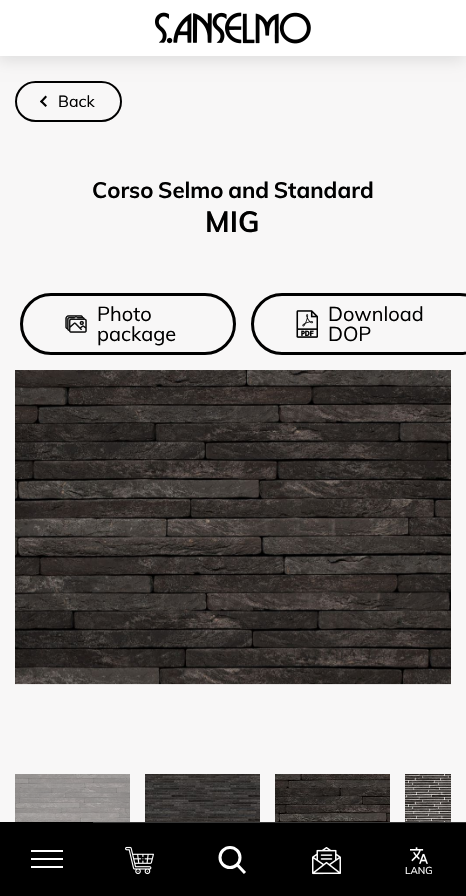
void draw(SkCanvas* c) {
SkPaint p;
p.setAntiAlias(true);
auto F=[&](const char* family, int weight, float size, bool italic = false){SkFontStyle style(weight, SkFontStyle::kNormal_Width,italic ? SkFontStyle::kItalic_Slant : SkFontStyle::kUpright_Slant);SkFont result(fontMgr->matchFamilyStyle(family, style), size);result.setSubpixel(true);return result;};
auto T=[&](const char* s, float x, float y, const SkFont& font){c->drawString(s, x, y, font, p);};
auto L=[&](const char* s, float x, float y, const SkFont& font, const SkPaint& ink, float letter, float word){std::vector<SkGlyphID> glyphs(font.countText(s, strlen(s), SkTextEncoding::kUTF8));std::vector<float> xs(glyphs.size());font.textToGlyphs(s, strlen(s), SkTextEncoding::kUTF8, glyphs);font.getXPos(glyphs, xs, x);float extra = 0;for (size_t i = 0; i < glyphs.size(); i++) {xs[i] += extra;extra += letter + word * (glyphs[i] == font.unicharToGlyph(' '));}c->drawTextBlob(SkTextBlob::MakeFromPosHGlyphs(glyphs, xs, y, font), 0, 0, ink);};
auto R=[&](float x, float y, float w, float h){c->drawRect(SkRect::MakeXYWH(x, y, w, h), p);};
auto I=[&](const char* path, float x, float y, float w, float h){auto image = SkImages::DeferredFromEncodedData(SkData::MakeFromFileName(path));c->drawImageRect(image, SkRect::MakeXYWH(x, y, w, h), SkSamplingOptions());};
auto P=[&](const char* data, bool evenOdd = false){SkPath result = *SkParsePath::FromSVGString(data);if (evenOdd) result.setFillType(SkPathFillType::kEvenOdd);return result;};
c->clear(0xfff8f7f7);
p.setStroke(true);
p.setStrokeWidth(2);
p.setColor(0xff000000);
c->drawRoundRect(SkRect::MakeXYWH(16,82,105,39),19.5,19.5,p);
p.setStroke(false);
p.setColor(0x1c000000);
p.setMaskFilter(SkMaskFilter::MakeBlur(kNormal_SkBlurStyle, 7.5));
c->drawRect(SkRect::MakeXYWH(-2,4,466,56),p);
p.setMaskFilter(nullptr);
p.setColor(0xffffffff);
R(0,0,466,56);
I("1.png",155,12,156,32);
p.setColor(0xff000000);
c->drawPath(P("M41.5 100l5.5 5.5l-1.5 1.5l-5.5-5.5z"),p);
c->drawPath(P("M45.5 95.5l1.5 1.5l-5.5 6l-1.5-1.5z"),p);
auto f1 = F("Muli",400,16);
T("Back",58,107,f1);
auto f2 = F("Muli",700,22.25);
L("Corso Selmo and Standard",92,198,f2,p,0,-1.5);
auto f3 = F("Muli",700,29);
T("MIG",205,232,f3);
p.setStroke(true);
p.setStrokeWidth(3);
c->drawRoundRect(SkRect::MakeXYWH(21.5,294.5,213,59),29.5,29.5,p);
I("2.png",65,315,22,18);
auto f4 = F("Muli",400,20);
p.setStroke(false);
T("Photo",97,321,f4);
T("package",97,341,f4);
p.setStroke(true);
c->drawRoundRect(SkRect::MakeXYWH(252.5,294.5,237,59),29.5,29.5,p);
I("3.png",296,310,22,28);
p.setStroke(false);
T("Download",328,321,f4);
T("DOP",328,341,f4);
I("4.png",15,370,436,315);
I("5.png",15,774,115,48);
I("6.png",145,774,115,48);
I("7.png",275,774,115,48);
I("8.png",405,774,46,48);
R(0,822,466,74);
p.setColor(0xffffffff);
R(31,850,32,2);
R(31,858,32,2);
R(31,866,32,2);
p.setColor(0xff343434);
R(93,822,373,1);
I("9.png",125,846,29,29);
p.setStroke(true);
p.setColor(0xffffffff);
c->drawCircle(230,857.5,10,p);
c->drawPath(P("M237 864.5l8 8.5"),p);
I("10.png",312,847,29,28);
I("11.png",410,847,18,17);
auto f5 = F("Muli",400,10);
p.setStroke(false);
T("LANG",405,874,f5);
}
